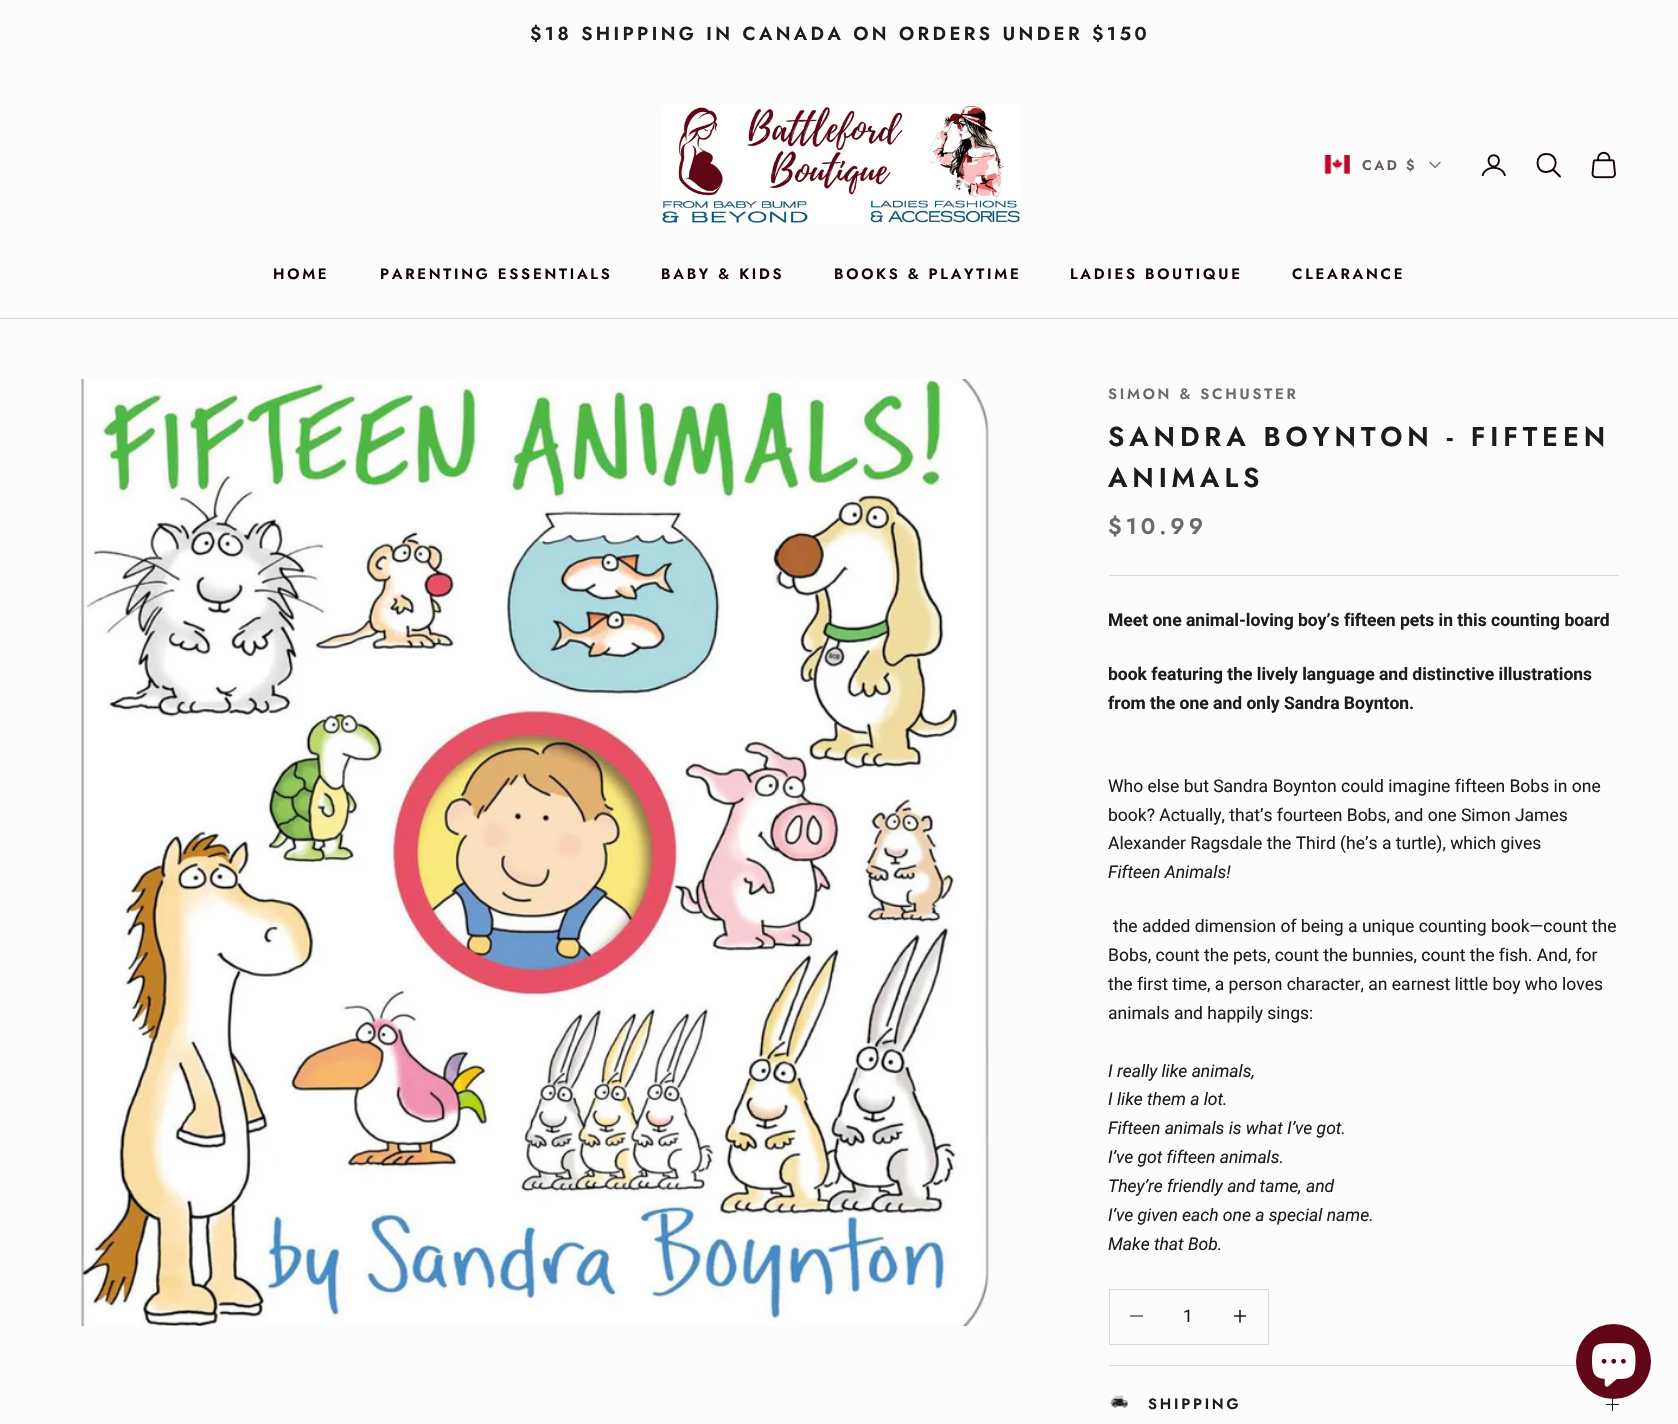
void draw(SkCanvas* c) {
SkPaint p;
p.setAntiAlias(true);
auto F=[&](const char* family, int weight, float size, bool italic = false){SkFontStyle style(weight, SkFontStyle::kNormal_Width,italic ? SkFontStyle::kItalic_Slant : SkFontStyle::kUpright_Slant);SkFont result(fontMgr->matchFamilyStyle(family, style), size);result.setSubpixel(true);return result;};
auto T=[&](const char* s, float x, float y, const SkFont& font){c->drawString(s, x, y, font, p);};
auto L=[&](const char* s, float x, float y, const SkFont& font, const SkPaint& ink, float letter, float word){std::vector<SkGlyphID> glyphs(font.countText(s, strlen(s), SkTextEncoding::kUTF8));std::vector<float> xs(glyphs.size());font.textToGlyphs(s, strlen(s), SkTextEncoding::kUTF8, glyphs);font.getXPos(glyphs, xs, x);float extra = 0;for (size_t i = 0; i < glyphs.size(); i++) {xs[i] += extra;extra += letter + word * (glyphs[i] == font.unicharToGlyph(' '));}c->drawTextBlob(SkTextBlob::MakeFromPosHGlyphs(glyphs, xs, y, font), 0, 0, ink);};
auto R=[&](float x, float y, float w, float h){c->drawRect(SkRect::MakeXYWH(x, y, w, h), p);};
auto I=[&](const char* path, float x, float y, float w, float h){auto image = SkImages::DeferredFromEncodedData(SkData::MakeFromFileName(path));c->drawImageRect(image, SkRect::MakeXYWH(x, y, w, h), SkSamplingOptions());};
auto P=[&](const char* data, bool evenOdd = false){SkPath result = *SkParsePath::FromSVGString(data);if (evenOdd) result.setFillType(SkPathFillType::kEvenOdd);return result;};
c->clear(0xfffcfcfc);
auto f1 = F("Jost",600,18.75);
p.setColor(0xff1c1c1c);
L("$18 SHIPPING IN CANADA ON ORDERS UNDER $150",530,40,f1,p,3.4,0);
p.setColor(0xffd9d7d7);
R(0,318,1678,1);
I("1.png",662,105,358,120);
I("2.png",1324,155,26,20);
auto f2 = F("Jost",600,14);
p.setColor(0xff655a5a);
L("CAD $",1362,170,f2,p,2.5,0);
p.setStroke(true);
p.setStrokeWidth(1.2);
p.setStrokeCap(SkPaint::kSquare_Cap);
c->drawPath(P("M1430 162.5l5 5l5-5"),p);
I("3.png",1481,154,25,23);
p.setStrokeWidth(1.9);
p.setStrokeCap(SkPaint::kButt_Cap);
p.setColor(0xff130202);
c->drawPath(P("M1546.5 154c-12-.5-12 18.5 0 18c12.5-.5 12-18 0-18z"),p);
p.setStrokeCap(SkPaint::kRound_Cap);
c->drawPath(P("M1553.5 170l6.5 6.5"),p);
I("4.png",1591,151,25,28);
auto f3 = F("Jost",600,15);
p.setStroke(false);
L("HOME",273,279,f3,p,2.75,0);
L("PARENTING ESSENTIALS",380,279,f3,p,2.75,0);
L("BABY & KIDS",661,279,f3,p,2.75,0);
L("BOOKS & PLAYTIME",834,279,f3,p,2.75,0);
L("LADIES BOUTIQUE",1070,279,f3,p,2.75,0);
L("CLEARANCE",1292,279,f3,p,2.75,0);
I("5.png",81,378,908,949);
p.setColor(0xff6a6a6a);
L("SIMON & SCHUSTER",1108,399,f3,p,2.75,0);
auto f4 = F("Jost",600,27.25);
p.setColor(0xff1c1c1c);
L("SANDRA BOYNTON - FIFTEEN",1108,446,f4,p,4.9,0);
L("ANIMALS",1108,487,f4,p,4.9,0);
auto f5 = F("Jost",600,22.5);
p.setColor(0xff6a6a6a);
L("$10.99",1108,534,f5,p,4,0);
p.setColor(0xffdadada);
R(1109,575,510,1);
auto f6 = F("Roboto",700,17.5);
p.setColor(0xff1c1c1c);
T("Meet one animal-loving boy’s fifteen pets in this counting board",1108,626,f6);
T("book featuring the lively language and distinctive illustrations",1108,680,f6);
T("from the one and only Sandra Boynton.",1108,709,f6);
auto f7 = F("Roboto",400,17.5);
T("Who else but Sandra Boynton could imagine fifteen Bobs in one",1108,792,f7);
T("book? Actually, that’s fourteen Bobs, and one Simon James",1108,821,f7);
T("Alexander Ragsdale the Third (he’s a turtle), which gives",1108,849,f7);
auto f8 = F("Roboto",400,17.5,true);
T("Fifteen Animals!",1108,878,f8);
T("the added dimension of being a unique counting book—count the",1113,932,f7);
T("Bobs, count the pets, count the bunnies, count the fish. And, for",1108,961,f7);
T("the first time, a person character, an earnest little boy who loves",1108,990,f7);
T("animals and happily sings:",1108,1019,f7);
T("I really like animals,",1108,1077,f8);
T("I like them a lot.",1108,1105,f8);
T("Fifteen animals is what I’ve got.",1108,1134,f8);
T("I’ve got fifteen animals.",1108,1163,f8);
T("They’re friendly and tame, and",1108,1192,f8);
T("I’ve given each one a special name.",1108,1221,f8);
T("Make that Bob.",1108,1250,f8);
p.setStroke(true);
p.setStrokeWidth(1);
p.setStrokeCap(SkPaint::kButt_Cap);
p.setColor(0xffdadada);
c->drawRect(SkRect::MakeXYWH(1109.5,1289.5,159,55),p);
p.setStroke(false);
p.setColor(0xff878787);
R(1130,1315,13,2);
p.setColor(0xff1c1c1c);
T("1",1183,1322,f7);
p.setStroke(true);
p.setStrokeWidth(1.6);
c->drawPath(P("M1240 1310v12.5m-6-6.5h12"),p);
p.setStroke(false);
p.setColor(0xffdadada);
R(1109,1365,468,1);
I("6.png",1109,1395,20,14);
p.setColor(0xff1c1c1c);
L("SHIPPING",1148,1409,f3,p,2.75,0);
R(1612,1398,1,13);
R(1606,1404,13,1);
p.setColor(0xff610618);
c->drawCircle(1613.5,1361.5,37.5,p);
I("7.png",1592,1343,44,44);
}
